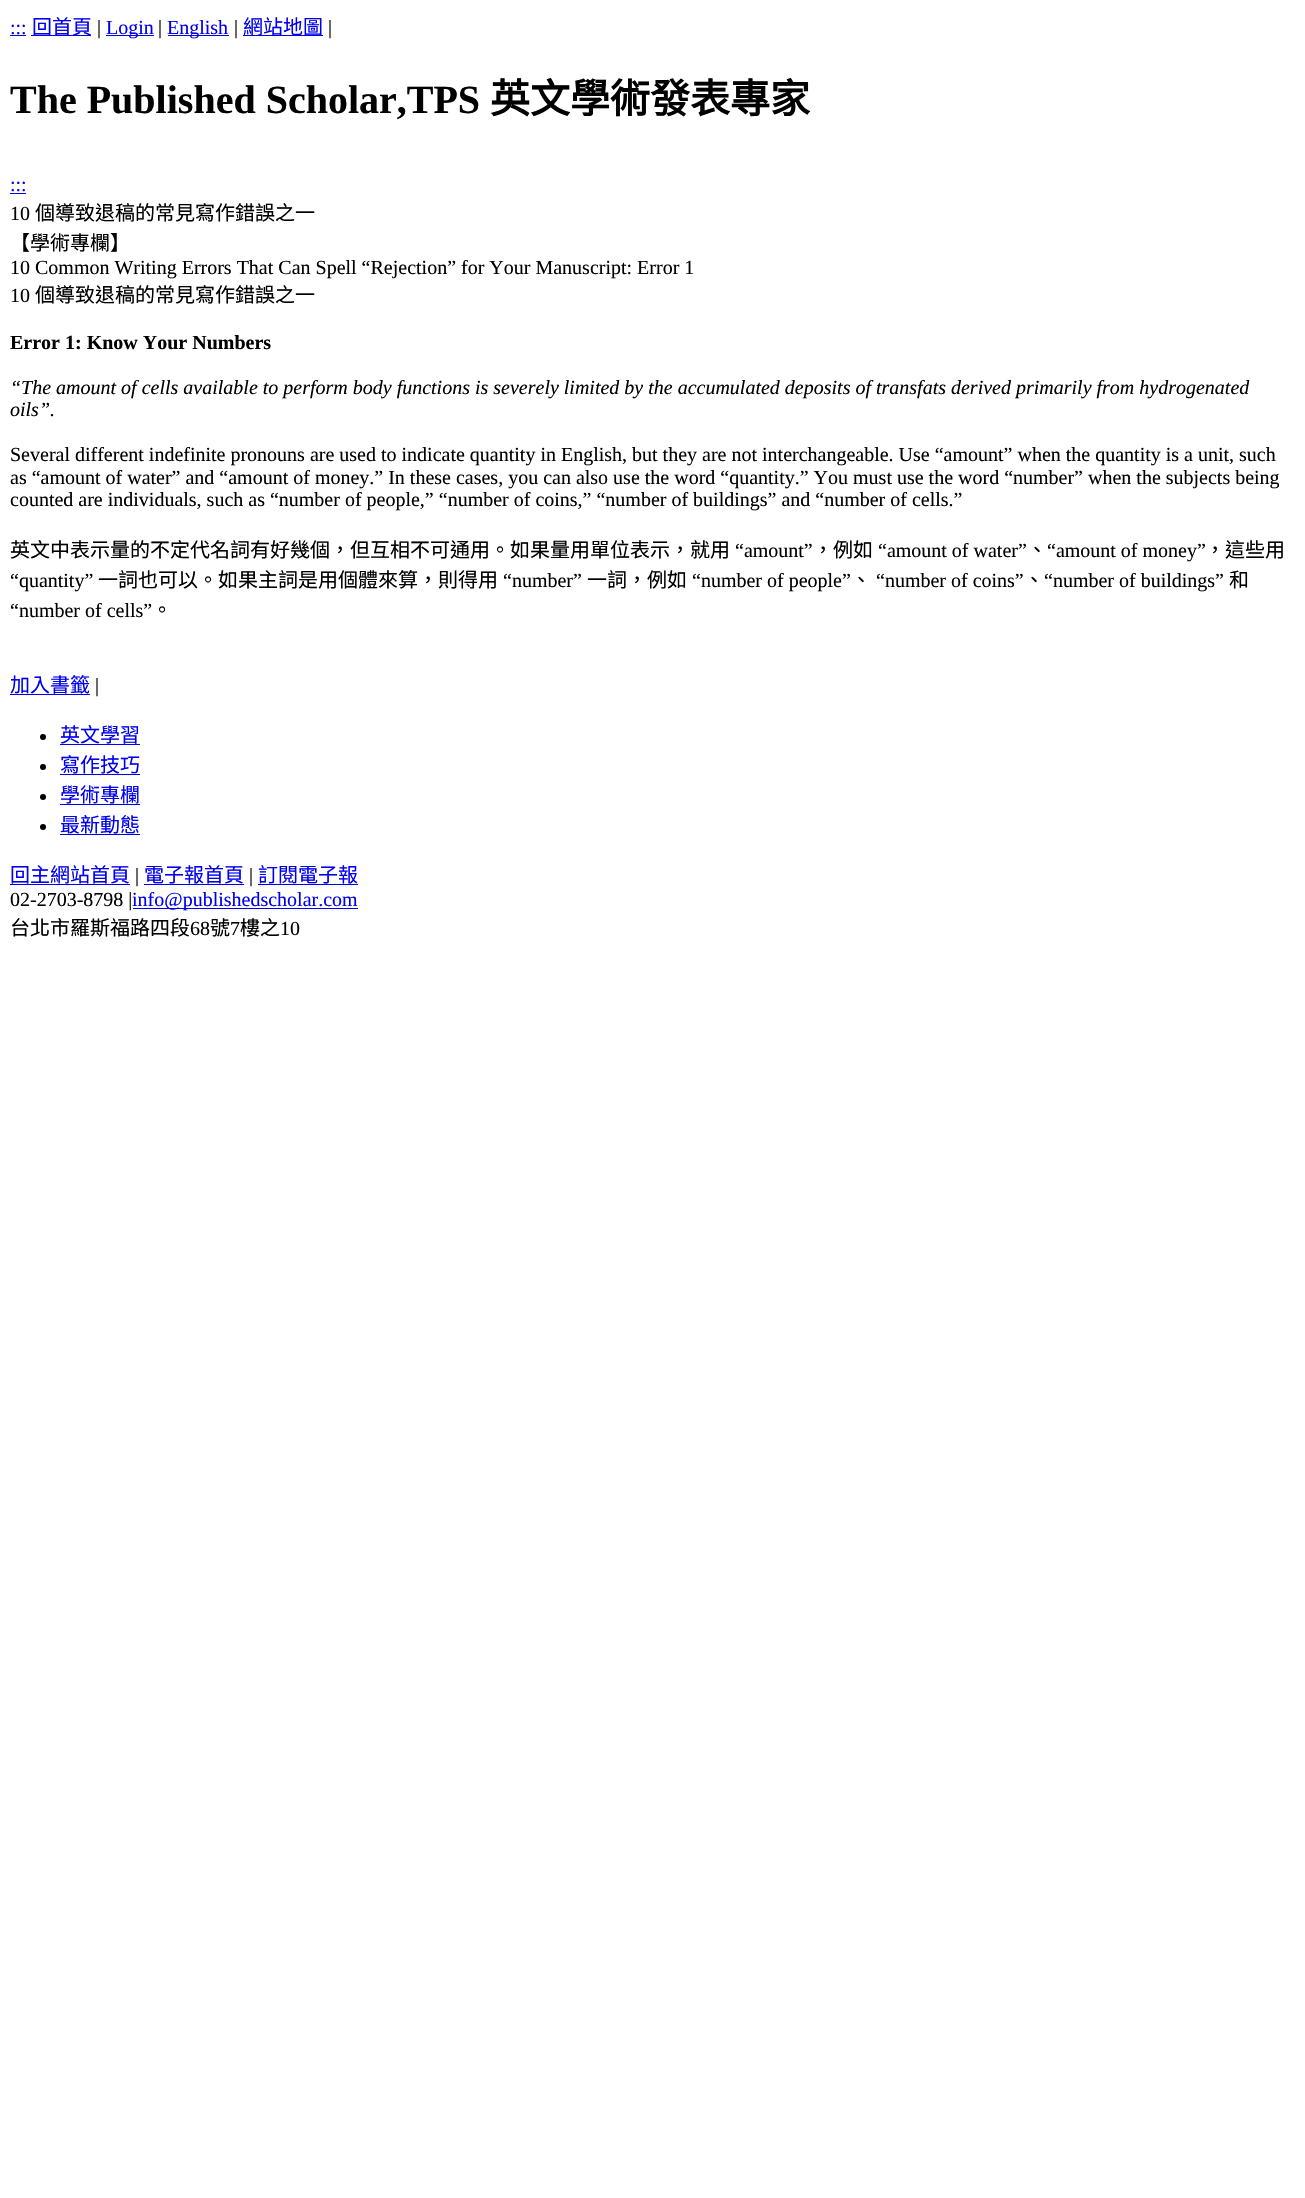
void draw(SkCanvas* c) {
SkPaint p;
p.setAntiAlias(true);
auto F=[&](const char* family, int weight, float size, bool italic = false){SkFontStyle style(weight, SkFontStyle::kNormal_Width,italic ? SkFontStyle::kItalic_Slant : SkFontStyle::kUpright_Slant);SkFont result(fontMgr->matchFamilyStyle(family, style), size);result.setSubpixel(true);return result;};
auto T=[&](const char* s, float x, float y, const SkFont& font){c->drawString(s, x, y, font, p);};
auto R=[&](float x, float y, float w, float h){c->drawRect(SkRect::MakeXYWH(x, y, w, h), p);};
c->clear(0xffffffff);
auto f1 = F("Liberation Serif",400,20);
p.setColor(0xff0000ee);
T(":::",10,34,f1);
R(10,35,16,1);
R(31,35,60,1);
auto f2 = F("Noto Sans CJK TC",400,20);
T("回首頁",32,34,f2);
p.setColor(0xff000000);
T("|",97,34,f1);
p.setColor(0xff0000ee);
R(106,35,48,1);
T("Login",106,34,f1);
p.setColor(0xff000000);
T("|",158,34,f1);
p.setColor(0xff0000ee);
R(168,35,61,1);
T("English",167,34,f1);
p.setColor(0xff000000);
T("|",234,34,f1);
p.setColor(0xff0000ee);
R(243,35,80,1);
T("網站地圖",243,34,f2);
p.setColor(0xff000000);
T("|",328,34,f1);
auto f3 = F("Liberation Serif",700,40);
T("The Published Scholar,TPS",10,113,f3);
auto f4 = F("Noto Sans CJK TC",700,40);
T("英文學術發表專家",490,113,f4);
p.setColor(0xff0000ee);
T(":::",10,191,f1);
R(10,193,16,1);
p.setColor(0xff000000);
T("10",10,220,f1);
T("個導致退稿的常見寫作錯誤之一",35,220,f2);
T("【學術專欄】",10,250,f2);
T("10 Common Writing Errors That Can Spell “Rejection” for Your Manuscript: Error 1",10,274,f1);
T("10",10,302,f1);
T("個導致退稿的常見寫作錯誤之一",35,302,f2);
auto f5 = F("Liberation Serif",700,20);
T("Error 1: Know Your Numbers",10,349,f5);
auto f6 = F("Liberation Serif",400,20,true);
T("“The amount of cells available to perform body functions is severely limited by the accumulated deposits of transfats derived primarily from hydrogenated",10,394,f6);
T("oils”.",10,416,f6);
T("Several different indefinite pronouns are used to indicate quantity in English, but they are not interchangeable. Use “amount” when the quantity is a unit, such",10,461,f1);
T("as “amount of water” and “amount of money.” In these cases, you can also use the word “quantity.” You must use the word “number” when the subjects being",10,484,f1);
T("counted are individuals, such as “number of people,” “number of coins,” “number of buildings” and “number of cells.”",10,506,f1);
T("英文中表示量的不定代名詞有好幾個，但互相不可通用。如果量用單位表示，就用",10,557,f2);
T("“amount”",735,557,f1);
T("，例如",813,557,f2);
T("“amount of water”",878,557,f1);
T("、",1027,557,f2);
T("“amount of money”",1047,557,f1);
T("，這些用",1205,557,f2);
T("“quantity”",10,587,f1);
T("一詞也可以。如果主詞是用個體來算，則得用",98,587,f2);
T("“number”",503,587,f1);
T("一詞，例如",587,587,f2);
T("“number of people”",692,587,f1);
T("、",851,587,f2);
T("“number of coins”",876,587,f1);
T("、",1024,587,f2);
T("“number of buildings”",1044,587,f1);
T("和",1229,587,f2);
T("“number of cells”",10,617,f1);
T("。",152,617,f2);
p.setColor(0xff0000ee);
T("加入書籤",10,692,f2);
R(10,694,80,1);
p.setColor(0xff000000);
T("|",95,692,f1);
c->drawCircle(43,737,3,p);
p.setColor(0xff0000ee);
T("英文學習",60,742,f2);
R(60,744,80,1);
p.setColor(0xff000000);
c->drawCircle(43,767,3,p);
p.setColor(0xff0000ee);
T("寫作技巧",60,772,f2);
R(60,774,80,1);
p.setColor(0xff000000);
c->drawCircle(43,797,3,p);
p.setColor(0xff0000ee);
T("學術專欄",60,802,f2);
R(60,804,80,1);
p.setColor(0xff000000);
c->drawCircle(43,827,3,p);
p.setColor(0xff0000ee);
T("最新動態",60,832,f2);
R(60,834,80,1);
T("回主網站首頁",10,882,f2);
R(10,884,120,1);
p.setColor(0xff000000);
T("|",135,882,f1);
p.setColor(0xff0000ee);
T("電子報首頁",144,882,f2);
R(144,884,100,1);
p.setColor(0xff000000);
T("|",249,882,f1);
p.setColor(0xff0000ee);
T("訂閱電子報",258,882,f2);
R(258,884,100,1);
p.setColor(0xff000000);
T("02-2703-8798 |",10,906,f1);
p.setColor(0xff0000ee);
R(133,908,225,1);
T("info@publishedscholar.com",132,906,f1);
p.setColor(0xff000000);
T("台北市羅斯福路四段",10,935,f2);
T("68",190,935,f1);
T("號",210,935,f2);
T("7",230,935,f1);
T("樓之",240,935,f2);
T("10",280,935,f1);
}
